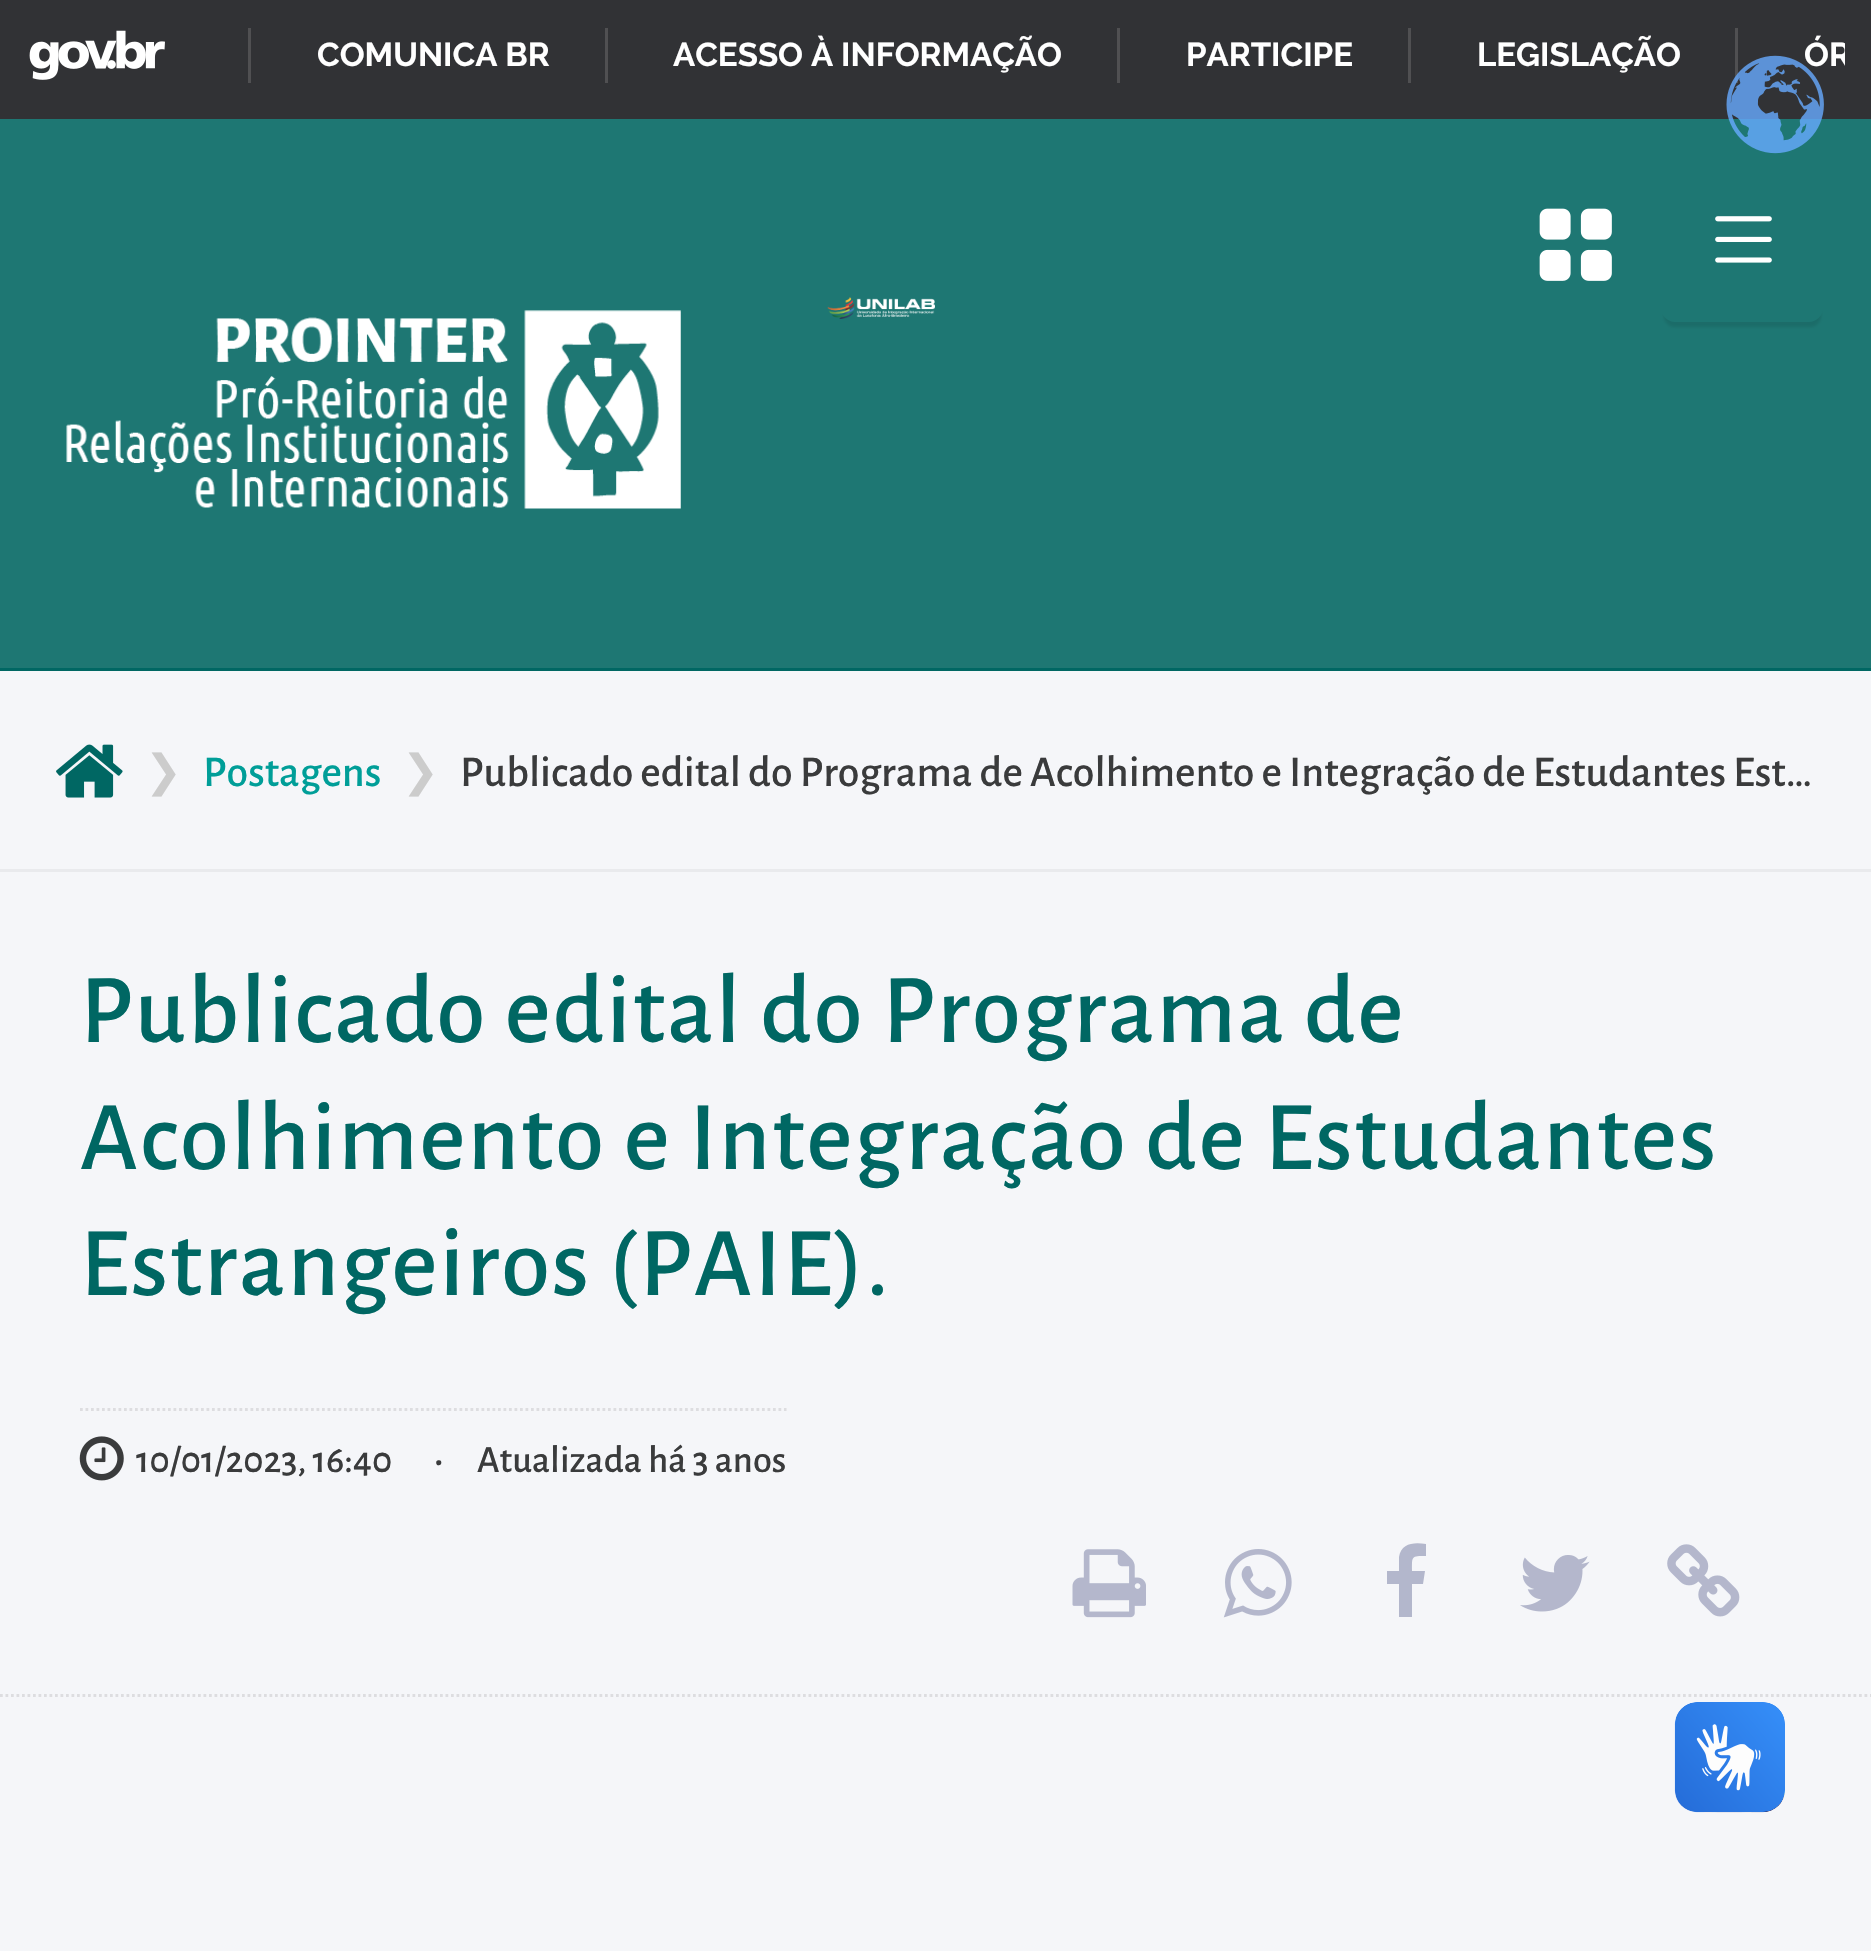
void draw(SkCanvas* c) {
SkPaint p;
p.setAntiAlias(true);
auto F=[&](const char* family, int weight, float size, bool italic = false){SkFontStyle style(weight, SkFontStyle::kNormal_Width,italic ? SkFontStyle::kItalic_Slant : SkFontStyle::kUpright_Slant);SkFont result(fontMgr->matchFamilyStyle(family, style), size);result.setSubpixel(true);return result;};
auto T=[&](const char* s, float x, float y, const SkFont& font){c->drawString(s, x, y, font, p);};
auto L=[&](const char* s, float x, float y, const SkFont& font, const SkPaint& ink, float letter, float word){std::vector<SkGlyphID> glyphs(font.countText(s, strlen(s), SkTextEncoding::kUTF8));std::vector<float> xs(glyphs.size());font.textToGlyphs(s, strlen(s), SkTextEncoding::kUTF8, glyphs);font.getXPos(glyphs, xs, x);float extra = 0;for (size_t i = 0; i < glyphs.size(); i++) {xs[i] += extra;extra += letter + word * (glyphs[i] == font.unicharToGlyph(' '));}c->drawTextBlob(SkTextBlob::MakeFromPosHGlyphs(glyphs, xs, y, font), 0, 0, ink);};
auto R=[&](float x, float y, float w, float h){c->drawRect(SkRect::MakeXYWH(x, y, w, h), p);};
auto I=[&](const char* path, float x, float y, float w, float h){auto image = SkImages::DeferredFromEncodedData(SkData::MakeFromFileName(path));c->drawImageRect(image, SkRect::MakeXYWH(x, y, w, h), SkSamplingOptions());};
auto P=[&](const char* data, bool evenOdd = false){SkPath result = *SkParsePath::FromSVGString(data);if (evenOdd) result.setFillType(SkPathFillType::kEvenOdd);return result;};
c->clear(0xfff5f6f9);
p.setColor(0xff313235);
R(0,0,1871,119);
I("1.png",29,30,136,50);
p.setColor(0xff505052);
R(248,28,3,55);
auto f1 = F("Raleway",700,33);
p.setColor(0xffffffff);
T("COMUNICA BR",317,66,f1);
p.setColor(0xff505052);
R(605,28,3,55);
p.setColor(0xffffffff);
T("ACESSO À INFORMAÇÃO",673,66,f1);
p.setColor(0xff505052);
R(1117,28,3,55);
p.setColor(0xffffffff);
T("PARTICIPE",1186,66,f1);
p.setColor(0xff505052);
R(1408,28,3,55);
p.setColor(0xffffffff);
T("LEGISLAÇÃO",1477,66,f1);
p.setColor(0xff505052);
R(1735,28,3,55);
c->save();
c->clipRect(SkRect::MakeXYWH(193,14,1652,82));
p.setColor(0xffffffff);
T("ÓR",1804,66,f1);
c->restore();
p.setColor(0xff1e7773);
R(0,119,1871,549);
p.setColor(0xff006763);
R(0,668,1871,3);
I("2.png",1539,208,73,73);
c->save();
c->clipPath(P("M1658 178h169v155h-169zm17-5h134c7.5 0 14 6.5 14 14v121c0 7.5-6.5 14-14 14h-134c-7.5 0-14-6.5-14-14v-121c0-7.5 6.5-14 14-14z",true),true);
p.setColor(0x17000000);
p.setMaskFilter(SkMaskFilter::MakeBlur(kNormal_SkBlurStyle, 1.5));
c->drawRoundRect(SkRect::MakeXYWH(1664,184,157,143),11,11,p);
p.setMaskFilter(nullptr);
c->restore();
I("3.png",1715,216,57,47);
I("4.png",66,310,615,199);
I("5.png",827,297,108,22);
p.setColor(0xffe9eaed);
R(0,869,1871,3);
I("6.png",56,744,67,54);
auto f2 = F("DejaVu Sans",400,44);
p.setColor(0xffcccccc);
T("❯",145,786,f2);
auto f3 = F("Alegreya Sans",500,44);
p.setColor(0xff009e98);
T("Postagens",203,786,f3);
p.setColor(0xffcccccc);
T("❯",402,786,f2);
p.setColor(0xff3a3b3c);
T("Publicado edital do Programa de Acolhimento e Integração de Estudantes Est…",460,786,f3);
auto f4 = F("Alegreya Sans",500,99);
p.setColor(0xff006763);
L("Publicado edital do Programa de",80,1042,f4,p,1.9,0);
L("Acolhimento e Integração de Estudantes",80,1169,f4,p,1.9,0);
L("Estrangeiros (PAIE).",80,1295,f4,p,1.9,0);
p.setStroke(true);
p.setStrokeWidth(2.8);
p.setColor(0xffdddde0);
p.setPathEffect(SkDashPathEffect::Make({{2.75f,2.75f}}, 0));
c->drawPath(P("M0 1695.5h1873"),p);
p.setPathEffect(nullptr);
p.setPathEffect(SkDashPathEffect::Make({{2.75f,2.75f}}, 0));
c->drawPath(P("M80 1409.5h706.5"),p);
p.setPathEffect(nullptr);
I("7.png",79,1436,45,45);
auto f5 = F("Alegreya Sans",500,38.5);
p.setStroke(false);
p.setColor(0xff3a3b3c);
T("10/01/2023, 16:40",136,1472,f5);
T("•",434,1472,f5);
T("Atualizada há 3 anos",477,1472,f5);
I("8.png",1072,1549,74,69);
I("9.png",1223,1549,69,69);
p.setColor(0xffb3b7cc);
c->drawPath(P("M1426 1544v12c-15 0-14 0-14 15h13l-2 13h-11v33h-13v-33h-12v-13h12v-14c2-14 15-15 27-13z"),p);
I("10.png",1520,1555,70,57);
I("11.png",1667,1544,73,73);
I("12.png",1726,55,98,99);
I("13.png",1674,1702,111,111);
I("14.png",1675,1702,110,110);
}
